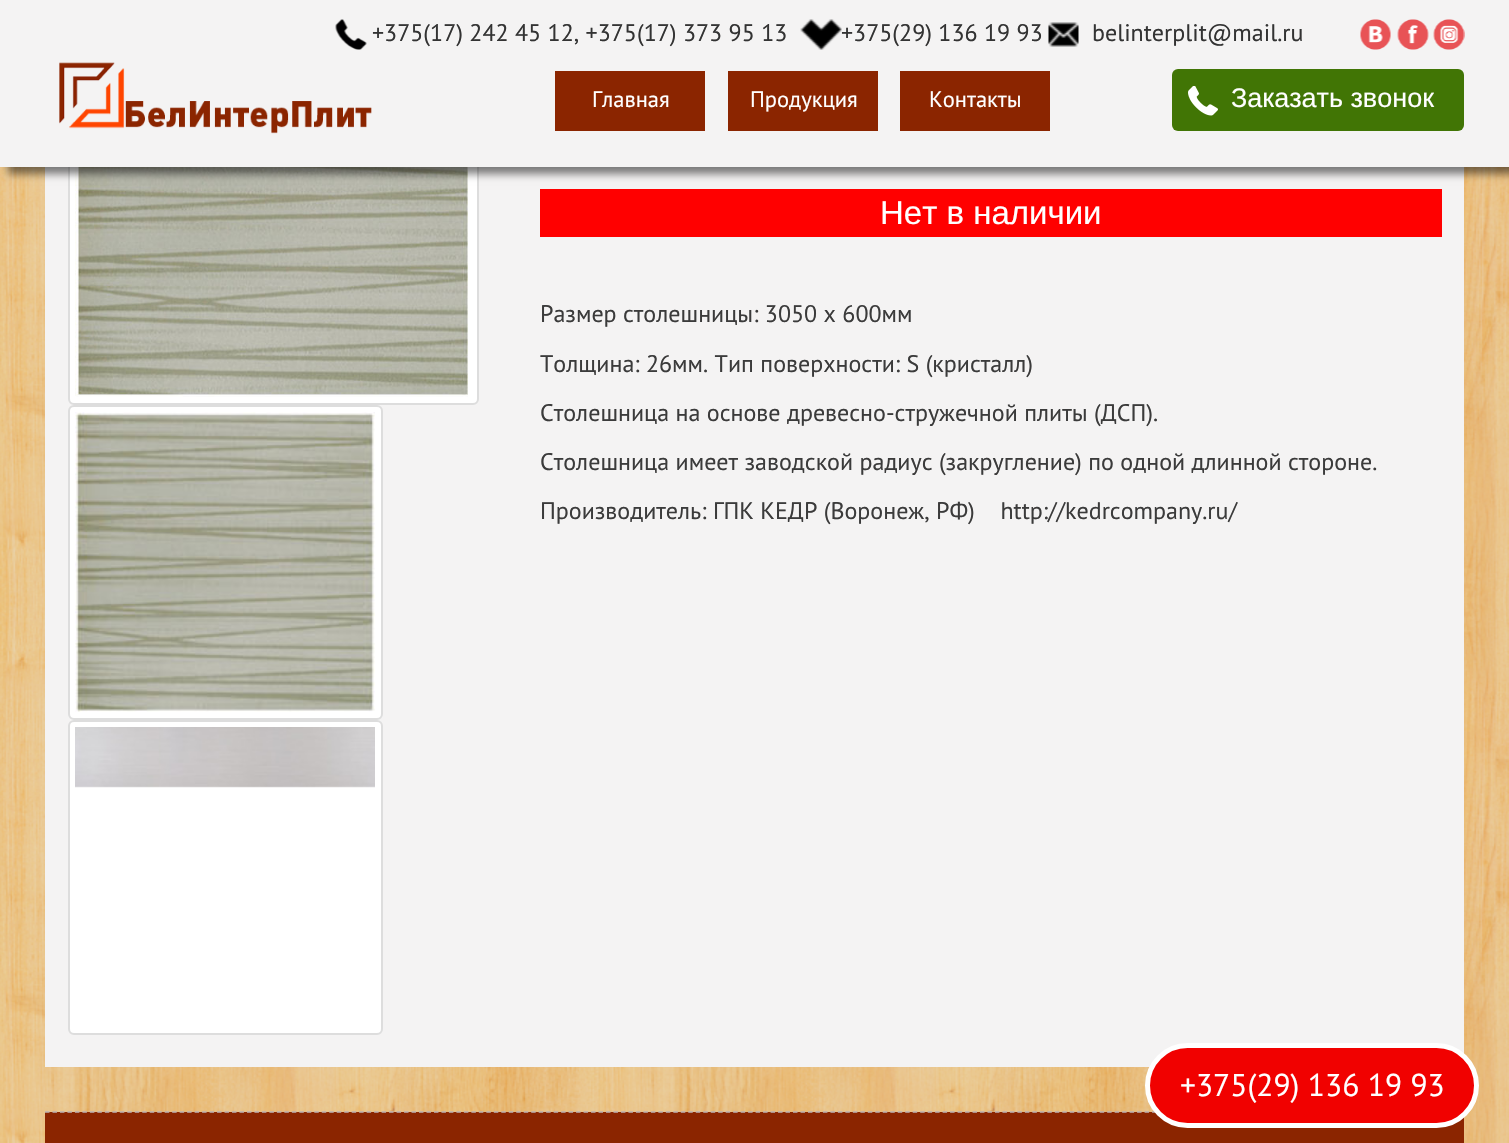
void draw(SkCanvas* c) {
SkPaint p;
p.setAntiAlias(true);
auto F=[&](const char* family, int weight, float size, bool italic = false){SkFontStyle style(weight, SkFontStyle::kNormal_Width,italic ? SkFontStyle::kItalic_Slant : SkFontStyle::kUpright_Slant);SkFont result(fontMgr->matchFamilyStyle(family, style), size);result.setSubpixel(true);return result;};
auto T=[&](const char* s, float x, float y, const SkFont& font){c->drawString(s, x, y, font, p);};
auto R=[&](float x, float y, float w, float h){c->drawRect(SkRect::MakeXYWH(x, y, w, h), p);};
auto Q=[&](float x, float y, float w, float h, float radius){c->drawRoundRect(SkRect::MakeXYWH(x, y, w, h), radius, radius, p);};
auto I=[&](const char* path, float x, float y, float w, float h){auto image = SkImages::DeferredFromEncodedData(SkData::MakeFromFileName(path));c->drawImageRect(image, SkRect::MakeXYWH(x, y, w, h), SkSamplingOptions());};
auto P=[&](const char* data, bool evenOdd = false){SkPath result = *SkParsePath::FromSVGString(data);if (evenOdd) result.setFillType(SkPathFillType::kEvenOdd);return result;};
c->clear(0xffffffff);
I("1.png",0,167,1509,976);
p.setColor(0xfff4f3f3);
R(45,167,1419,900);
p.setColor(0xffffffff);
c->drawRoundRect(SkRect::MakeXYWH(69,-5,409,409),5,5,p);
p.setStroke(true);
p.setStrokeWidth(2);
p.setColor(0xffdddddd);
c->drawRoundRect(SkRect::MakeXYWH(69,-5,409,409),5,5,p);
I("10.png",75,167,393,230);
p.setStroke(false);
p.setColor(0x80000000);
p.setMaskFilter(SkMaskFilter::MakeBlur(kNormal_SkBlurStyle, 4));
c->drawRect(SkRect::MakeXYWH(8,8,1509,166),p);
p.setMaskFilter(nullptr);
p.setColor(0xfff4f3f3);
R(0,0,1509,167);
I("2.png",335,19,32,31);
auto f1 = F("PT Sans",400,24);
p.setColor(0xff333333);
T("+375(17) 242 45 12, +375(17) 373 95 13",372,41,f1);
I("3.png",800,19,42,31);
T("+375(29) 136 19 93",841,41,f1);
I("4.png",1048,22,31,25);
T("belinterplit@mail.ru",1092,41,f1);
I("5.png",1360,19,31,31);
I("6.png",1397,19,32,31);
I("7.png",1433,19,32,31);
I("8.png",59,62,313,72);
p.setColor(0xff8b2500);
R(555,71,150,60);
auto f2 = F("PT Sans",400,22.5);
p.setColor(0xffffffff);
T("Главная",592,107,f2);
p.setColor(0xff8b2500);
R(728,71,150,60);
p.setColor(0xffffffff);
T("Продукция",750,107,f2);
p.setColor(0xff8b2500);
R(900,71,150,60);
p.setColor(0xffffffff);
T("Контакты",929,107,f2);
p.setColor(0xff417505);
Q(1172,69,292,62,6);
I("9.png",1188,86,30,30);
auto f3 = F("Liberation Sans",400,27);
p.setColor(0xffffffff);
T("Заказать звонок",1231,107,f3);
c->drawRoundRect(SkRect::MakeXYWH(69,406,313,313),5,5,p);
p.setStroke(true);
p.setColor(0xffdddddd);
c->drawRoundRect(SkRect::MakeXYWH(69,406,313,313),5,5,p);
I("11.png",75,412,300,300);
p.setStroke(false);
p.setColor(0xffffffff);
c->drawRoundRect(SkRect::MakeXYWH(69,721,313,313),5,5,p);
p.setStroke(true);
p.setColor(0xffdddddd);
c->drawRoundRect(SkRect::MakeXYWH(69,721,313,313),5,5,p);
I("12.png",75,727,300,61);
p.setStroke(false);
p.setColor(0xffff0000);
R(540,189,902,48);
auto f4 = F("Liberation Sans",400,33);
p.setColor(0xffffffff);
T("Нет в наличии",880,224,f4);
p.setColor(0xff3b3b3b);
T("Размер столешницы: 3050 х 600мм",540,322,f1);
T("Толщина: 26мм. Тип поверхности: S (кристалл)",540,372,f1);
T("Столешница на основе древесно-стружечной плиты (ДСП).",540,421,f1);
T("Столешница имеет заводской радиус (закругление) по одной длинной стороне.",540,470,f1);
T("Производитель: ГПК КЕДР (Воронеж, РФ)    http://kedrcompany.ru/",540,519,f1);
p.setColor(0xff8b2500);
R(45,1112,1419,31);
p.setStroke(true);
p.setStrokeWidth(1.5);
p.setColor(0xffbdb3b3);
p.setPathEffect(SkDashPathEffect::Make({{4.5f,2.98f}}, 0));
c->drawPath(P("M45 1112h1419"),p);
p.setPathEffect(nullptr);
p.setStroke(false);
p.setColor(0xfff10100);
c->drawRoundRect(SkRect::MakeXYWH(1147.5,1045.5,329,80),40,40,p);
p.setStroke(true);
p.setStrokeWidth(5);
p.setColor(0xffffffff);
c->drawRoundRect(SkRect::MakeXYWH(1147.5,1045.5,329,80),40,40,p);
auto f5 = F("PT Sans",400,31.5);
p.setStroke(false);
T("+375(29) 136 19 93",1180,1096,f5);
}
